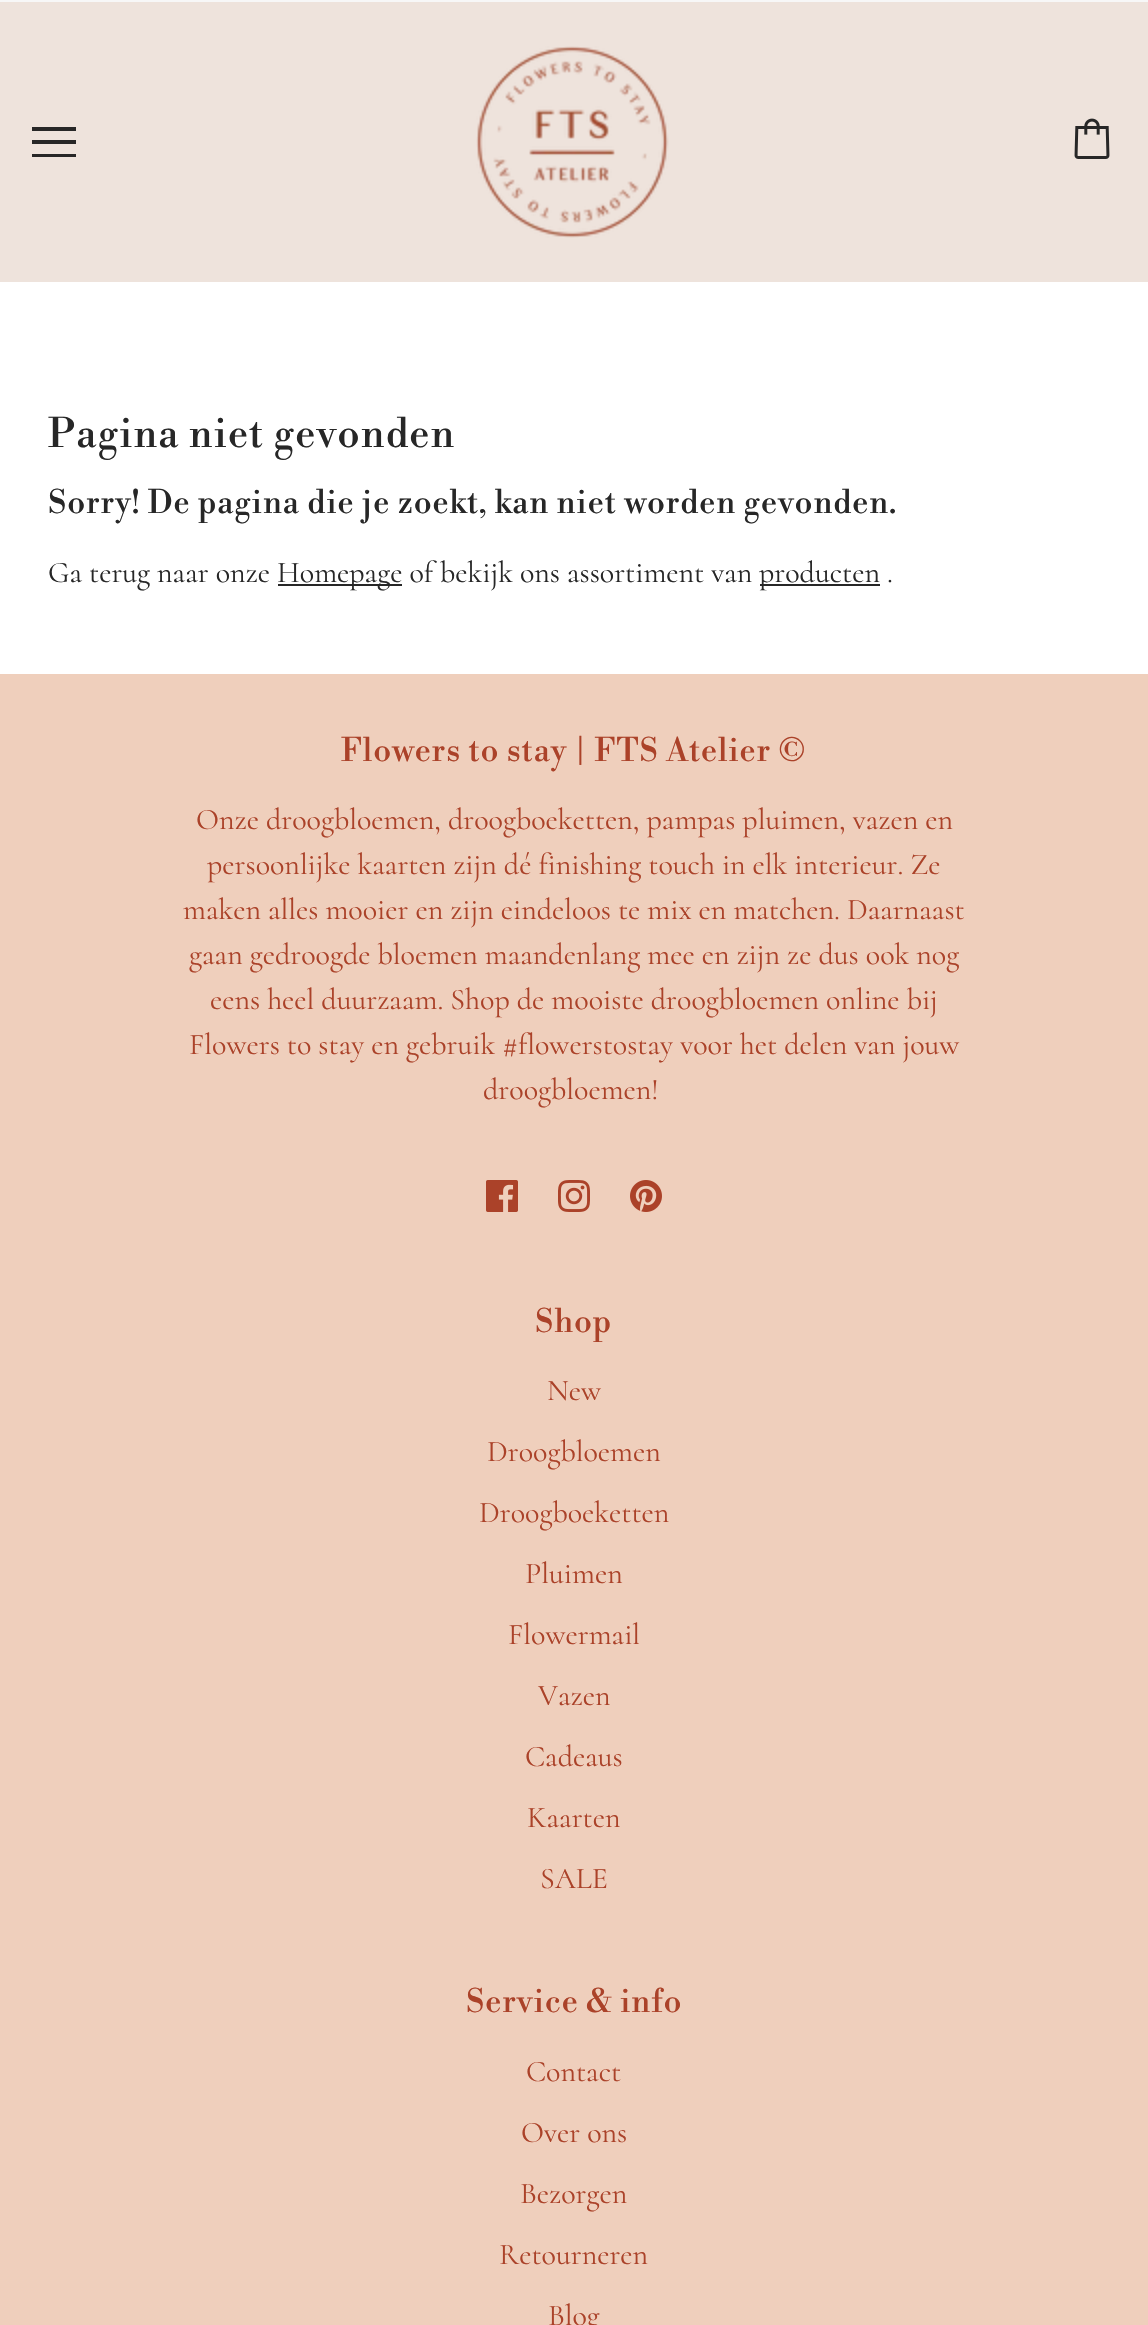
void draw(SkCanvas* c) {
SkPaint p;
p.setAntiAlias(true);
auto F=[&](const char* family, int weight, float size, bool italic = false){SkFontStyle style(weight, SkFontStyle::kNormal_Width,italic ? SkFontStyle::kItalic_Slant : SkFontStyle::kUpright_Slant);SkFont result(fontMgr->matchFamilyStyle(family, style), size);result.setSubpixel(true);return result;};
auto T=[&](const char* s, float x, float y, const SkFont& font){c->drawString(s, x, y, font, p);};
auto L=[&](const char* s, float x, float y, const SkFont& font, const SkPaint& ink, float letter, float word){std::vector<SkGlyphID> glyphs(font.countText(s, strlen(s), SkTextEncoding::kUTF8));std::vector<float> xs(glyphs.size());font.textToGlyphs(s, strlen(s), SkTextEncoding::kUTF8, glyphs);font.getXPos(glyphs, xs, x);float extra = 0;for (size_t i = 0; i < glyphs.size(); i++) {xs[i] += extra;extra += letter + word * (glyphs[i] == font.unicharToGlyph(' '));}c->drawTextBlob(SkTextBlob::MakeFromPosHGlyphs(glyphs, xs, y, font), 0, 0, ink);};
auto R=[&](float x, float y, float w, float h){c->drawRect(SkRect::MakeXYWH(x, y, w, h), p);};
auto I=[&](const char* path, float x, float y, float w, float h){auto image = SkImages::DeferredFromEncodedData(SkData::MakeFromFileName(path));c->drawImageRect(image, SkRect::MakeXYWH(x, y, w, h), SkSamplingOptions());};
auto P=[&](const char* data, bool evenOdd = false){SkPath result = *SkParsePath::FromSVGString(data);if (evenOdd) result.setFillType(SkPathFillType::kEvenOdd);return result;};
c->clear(0xffffffff);
p.setColor(0xfff7f7f7);
R(0,0,1148,2);
p.setColor(0xffeee3dc);
R(0,2,1148,280);
p.setColor(0xff272727);
c->drawPath(P("M32 131v-4h44v4zm0 13v-4h44v4zm0 13v-3h44v3z"),p);
I("1.png",476,46,193,192);
I("2.png",1074,118,36,41);
auto f1 = F("Libre Bodoni",400,40);
L("Pagina niet gevonden",48,447,f1,p,1,0);
auto f2 = F("Libre Bodoni",400,32);
L("Sorry! De pagina die je zoekt, kan niet worden gevonden.",48,513,f2,p,.8,0);
auto f3 = F("Cormorant",400,30);
T("Ga terug naar onze",48,582,f3);
R(278,584,124,2);
T("Homepage of bekijk ons assortiment van",277,582,f3);
R(760,584,120,2);
T("producten .",759,582,f3);
p.setColor(0xffefcfbc);
R(0,674,1148,1651);
p.setColor(0xffab4229);
L("Flowers to stay | FTS Atelier ©",341,761,f2,p,.8,0);
T("Onze droogbloemen, droogboeketten, pampas pluimen, vazen en",196,829,f3);
T("persoonlijke kaarten zijn dé finishing touch in elk interieur. Ze",207,874,f3);
T("maken alles mooier en zijn eindeloos te mix en matchen. Daarnaast",183,919,f3);
T("gaan gedroogde bloemen maandenlang mee en zijn ze dus ook nog",189,964,f3);
T("eens heel duurzaam. Shop de mooiste droogbloemen online bij",210,1009,f3);
T("Flowers to stay en gebruik #flowerstostay voor het delen van jouw",189,1054,f3);
T("droogbloemen!",483,1099,f3);
I("3.png",486,1180,32,32);
I("4.png",558,1180,32,32);
I("5.png",630,1180,32,32);
L("Shop",535,1332,f2,p,.8,0);
T("New",547,1400,f3);
T("Droogbloemen",487,1461,f3);
T("Droogboeketten",479,1522,f3);
T("Pluimen",525,1583,f3);
T("Flowermail",508,1644,f3);
T("Vazen",538,1705,f3);
T("Cadeaus",525,1766,f3);
T("Kaarten",527,1827,f3);
T("SALE",540,1888,f3);
L("Service & info",466,2012,f2,p,.8,0);
T("Contact",526,2081,f3);
T("Over ons",521,2142,f3);
T("Bezorgen",520,2203,f3);
T("Retourneren",499,2264,f3);
T("Blog",548,2325,f3);
}
